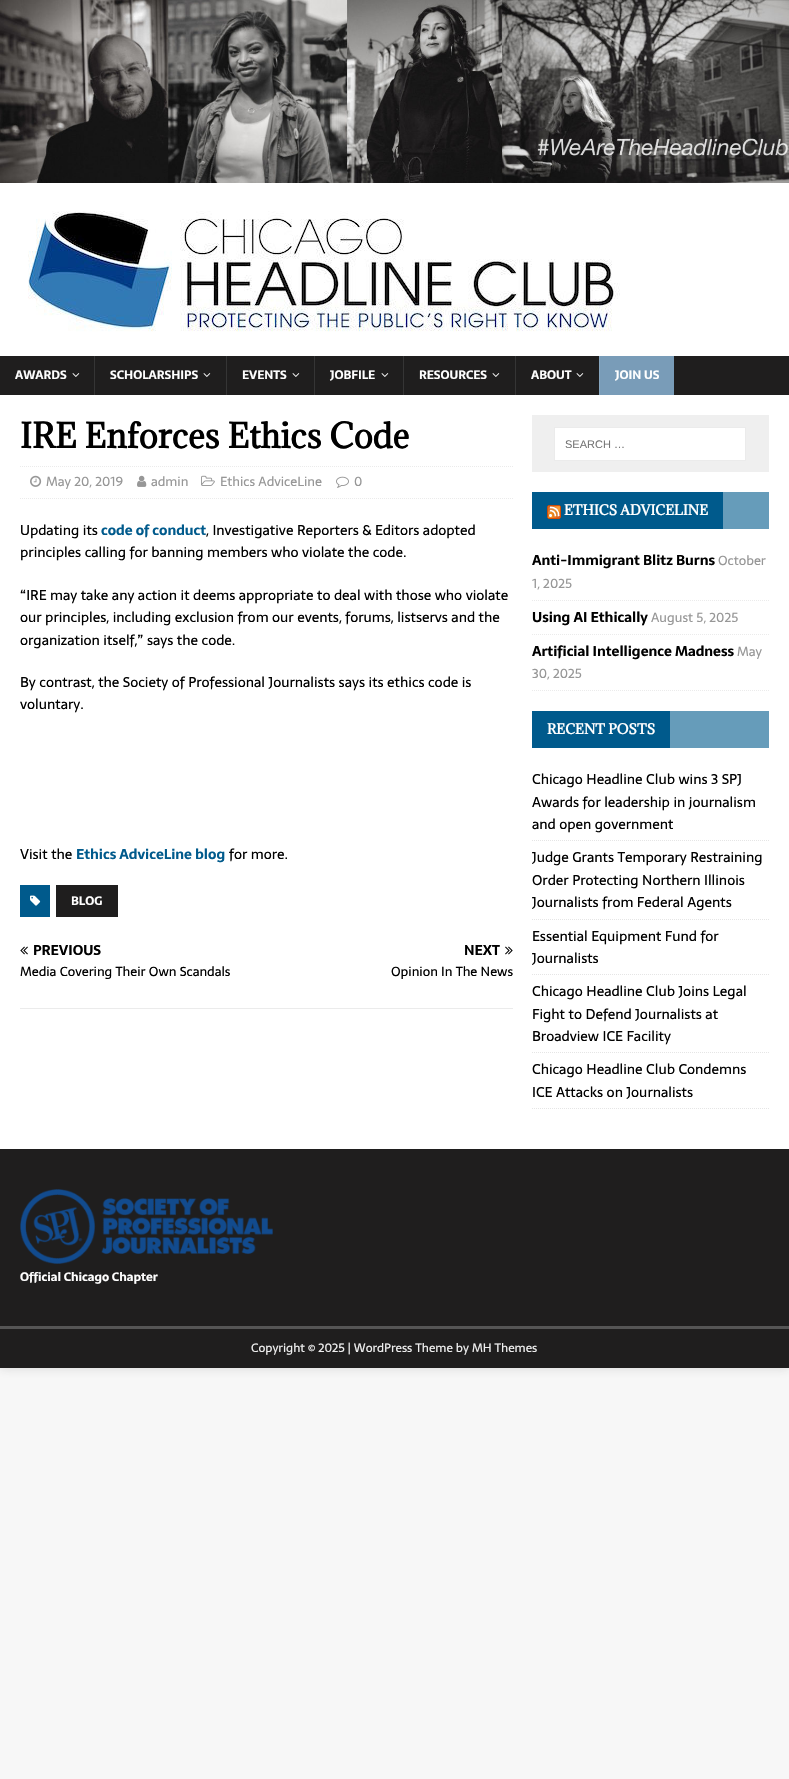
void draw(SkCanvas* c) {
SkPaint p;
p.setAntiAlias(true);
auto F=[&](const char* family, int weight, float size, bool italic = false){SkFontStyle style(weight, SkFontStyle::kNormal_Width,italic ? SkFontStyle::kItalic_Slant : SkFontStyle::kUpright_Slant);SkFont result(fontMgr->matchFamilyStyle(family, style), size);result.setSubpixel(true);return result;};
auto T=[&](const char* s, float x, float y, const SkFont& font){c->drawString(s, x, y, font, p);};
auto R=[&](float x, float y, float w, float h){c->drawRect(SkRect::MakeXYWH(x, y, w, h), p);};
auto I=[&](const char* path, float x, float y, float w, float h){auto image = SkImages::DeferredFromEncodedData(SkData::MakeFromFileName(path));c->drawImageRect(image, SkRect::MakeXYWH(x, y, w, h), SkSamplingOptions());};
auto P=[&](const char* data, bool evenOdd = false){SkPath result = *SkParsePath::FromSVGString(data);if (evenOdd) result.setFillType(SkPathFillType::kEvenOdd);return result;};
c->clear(0xfff7f7f7);
p.setColor(0x2b323232);
p.setMaskFilter(SkMaskFilter::MakeBlur(kNormal_SkBlurStyle, 5));
c->drawRect(SkRect::MakeXYWH(0,0,789,1368),p);
p.setMaskFilter(nullptr);
p.setColor(0xffffffff);
R(0,183,789,173);
I("1.png",0,0,789,183);
I("2.png",28,211,592,121);
p.setColor(0xff1f1e1e);
R(0,356,789,39);
auto f1 = F("Sarala",700,12);
p.setColor(0xffffffff);
T("AWARDS",15,379,f1);
I("3.png",72,373,8,4);
p.setColor(0xff353535);
R(94,356,1,39);
p.setColor(0xffffffff);
T("SCHOLARSHIPS",110,379,f1);
I("3.png",203,373,8,4);
p.setColor(0xff353535);
R(226,356,1,39);
p.setColor(0xffffffff);
T("EVENTS",242,379,f1);
I("3.png",292,373,8,4);
p.setColor(0xff353535);
R(314,356,1,39);
p.setColor(0xffffffff);
T("JOBFILE",330,379,f1);
I("3.png",381,373,8,4);
p.setColor(0xff353535);
R(403,356,1,39);
p.setColor(0xffffffff);
T("RESOURCES",419,379,f1);
I("3.png",492,373,8,4);
p.setColor(0xff353535);
R(515,356,1,39);
p.setColor(0xffffffff);
T("ABOUT",531,379,f1);
I("3.png",576,373,8,4);
p.setColor(0xff799cb8);
R(600,356,74,39);
p.setColor(0xff86a6bf);
R(599,356,1,39);
p.setColor(0xffffffff);
T("JOIN US",615,379,f1);
R(0,395,789,754);
auto f2 = F("Adamina",700,32);
p.setColor(0xff000000);
T("IRE Enforces Ethics Code",20,448,f2);
p.setStroke(true);
p.setStrokeWidth(1);
p.setColor(0xffebebeb);
p.setPathEffect(SkDashPathEffect::Make({{1,1}}, 0));
c->drawPath(P("M20 466.5h493"),p);
p.setPathEffect(nullptr);
p.setPathEffect(SkDashPathEffect::Make({{1,1}}, 0));
c->drawPath(P("M20 498.5h493"),p);
p.setPathEffect(nullptr);
I("4.png",30,475,12,12);
auto f3 = F("Sarala",400,13);
p.setStroke(false);
p.setColor(0xff979797);
T("May 20, 2019",46,486,f3);
I("5.png",137,475,10,12);
T("admin",151,486,f3);
I("6.png",201,475,14,11);
T("Ethics AdviceLine",220,486,f3);
I("7.png",336,476,13,12);
T("0",354,486,f3);
auto f4 = F("Sarala",400,14);
p.setColor(0xff000000);
T("Updating its",20,535,f4);
auto f5 = F("Sarala",700,14);
p.setColor(0xff005a8c);
T("code of conduct",101,535,f5);
p.setColor(0xff000000);
T(", Investigative Reporters & Editors adopted",206,535,f4);
T("principles calling for banning members who violate the code.",20,557,f4);
T("“IRE may take any action it deems appropriate to deal with those who violate",20,600,f4);
T("our principles, including exclusion from our events, forums, listservs and the",20,622,f4);
T("organization itself,” says the code.",20,645,f4);
T("By contrast, the Society of Professional Journalists says its ethics code is",20,687,f4);
T("voluntary.",20,709,f4);
T("Visit the",20,859,f4);
p.setColor(0xff005a8c);
T("Ethics AdviceLine blog",76,859,f5);
p.setColor(0xff000000);
T("for more.",229,859,f4);
p.setColor(0xff005a8c);
R(20,885,30,32);
I("8.png",30,895,11,11);
p.setColor(0xff1f1e1e);
R(56,885,62,32);
p.setColor(0xffffffff);
T("BLOG",71,905,f1);
p.setColor(0xffebebeb);
R(20,1008,493,1);
I("9.png",20,946,8,9);
p.setColor(0xff000000);
T("PREVIOUS",33,955,f5);
T("Media Covering Their Own Scandals",20,976,f3);
T("NEXT",464,955,f5);
I("10.png",505,946,8,9);
T("Opinion In The News",391,976,f3);
p.setColor(0xffefefef);
R(532,415,237,57);
p.setColor(0xffffffff);
c->drawRect(SkRect::MakeXYWH(554.5,427.5,191,33),p);
p.setStroke(true);
p.setColor(0xffebebeb);
c->drawRect(SkRect::MakeXYWH(554.5,427.5,191,33),p);
auto f6 = F("Liberation Sans",400,11);
p.setStroke(false);
p.setColor(0xff757575);
T("SEARCH …",565,448,f6);
p.setColor(0xff669cba);
R(723,492,46,37);
p.setColor(0xff005a8c);
R(532,492,191,37);
I("11.png",547,505,14,14);
auto f7 = F("Adamina",700,13);
p.setColor(0xffffffff);
T("ETHICS ADVICELINE",564,515,f7);
p.setStroke(true);
p.setColor(0xffebebeb);
p.setPathEffect(SkDashPathEffect::Make({{1,1}}, 0));
c->drawPath(P("M532 600.5h237"),p);
p.setPathEffect(nullptr);
p.setStroke(false);
p.setColor(0xff000000);
T("Anti-Immigrant Blitz Burns",532,565,f5);
p.setColor(0xff979797);
T("October",718,565,f3);
T("1, 2025",532,588,f3);
p.setStroke(true);
p.setColor(0xffebebeb);
p.setPathEffect(SkDashPathEffect::Make({{1,1}}, 0));
c->drawPath(P("M532 634.5h237"),p);
p.setPathEffect(nullptr);
p.setStroke(false);
p.setColor(0xff000000);
T("Using AI Ethically",532,622,f5);
p.setColor(0xff979797);
T("August 5, 2025",651,622,f3);
p.setStroke(true);
p.setColor(0xffebebeb);
p.setPathEffect(SkDashPathEffect::Make({{1,1}}, 0));
c->drawPath(P("M532 690.5h237"),p);
p.setPathEffect(nullptr);
p.setStroke(false);
p.setColor(0xff000000);
T("Artificial Intelligence Madness",532,656,f5);
p.setColor(0xff979797);
T("May",737,656,f3);
T("30, 2025",532,678,f3);
p.setColor(0xff669cba);
R(670,711,99,37);
p.setColor(0xff005a8c);
R(532,711,138,37);
p.setColor(0xffffffff);
T("RECENT POSTS",547,734,f7);
p.setStroke(true);
p.setColor(0xffe5e5e5);
p.setPathEffect(SkDashPathEffect::Make({{1,1}}, 0));
c->drawPath(P("M532 840.5h237"),p);
p.setPathEffect(nullptr);
p.setStroke(false);
p.setColor(0xff000000);
T("Chicago Headline Club wins 3 SPJ",532,784,f4);
T("Awards for leadership in journalism",532,807,f4);
T("and open government",532,829,f4);
p.setStroke(true);
p.setColor(0xffe5e5e5);
p.setPathEffect(SkDashPathEffect::Make({{1,1}}, 0));
c->drawPath(P("M532 919.5h237"),p);
p.setPathEffect(nullptr);
p.setStroke(false);
p.setColor(0xff000000);
T("Judge Grants Temporary Restraining",532,862,f4);
T("Order Protecting Northern Illinois",532,885,f4);
T("Journalists from Federal Agents",532,907,f4);
p.setStroke(true);
p.setColor(0xffe5e5e5);
p.setPathEffect(SkDashPathEffect::Make({{1,1}}, 0));
c->drawPath(P("M532 974.5h237"),p);
p.setPathEffect(nullptr);
p.setStroke(false);
p.setColor(0xff000000);
T("Essential Equipment Fund for",532,941,f4);
T("Journalists",532,963,f4);
p.setStroke(true);
p.setColor(0xffe5e5e5);
p.setPathEffect(SkDashPathEffect::Make({{1,1}}, 0));
c->drawPath(P("M532 1052.5h237"),p);
p.setPathEffect(nullptr);
p.setStroke(false);
p.setColor(0xff000000);
T("Chicago Headline Club Joins Legal",532,996,f4);
T("Fight to Defend Journalists at",532,1019,f4);
T("Broadview ICE Facility",532,1041,f4);
p.setStroke(true);
p.setColor(0xffe5e5e5);
p.setPathEffect(SkDashPathEffect::Make({{1,1}}, 0));
c->drawPath(P("M532 1108.5h237"),p);
p.setPathEffect(nullptr);
p.setStroke(false);
p.setColor(0xff000000);
T("Chicago Headline Club Condemns",532,1074,f4);
T("ICE Attacks on Journalists",532,1097,f4);
p.setColor(0xff1f1e1e);
R(0,1149,789,177);
I("12.png",20,1189,253,75);
p.setColor(0xffffffff);
T("Official Chicago Chapter",20,1281,f1);
p.setColor(0xff1f1e1e);
R(0,1329,789,39);
p.setColor(0xff555555);
R(0,1326,789,3);
auto f8 = F("Sarala",400,12);
p.setColor(0xffefefef);
T("Copyright © 2025 | WordPress Theme by MH Themes",251,1352,f8);
}
